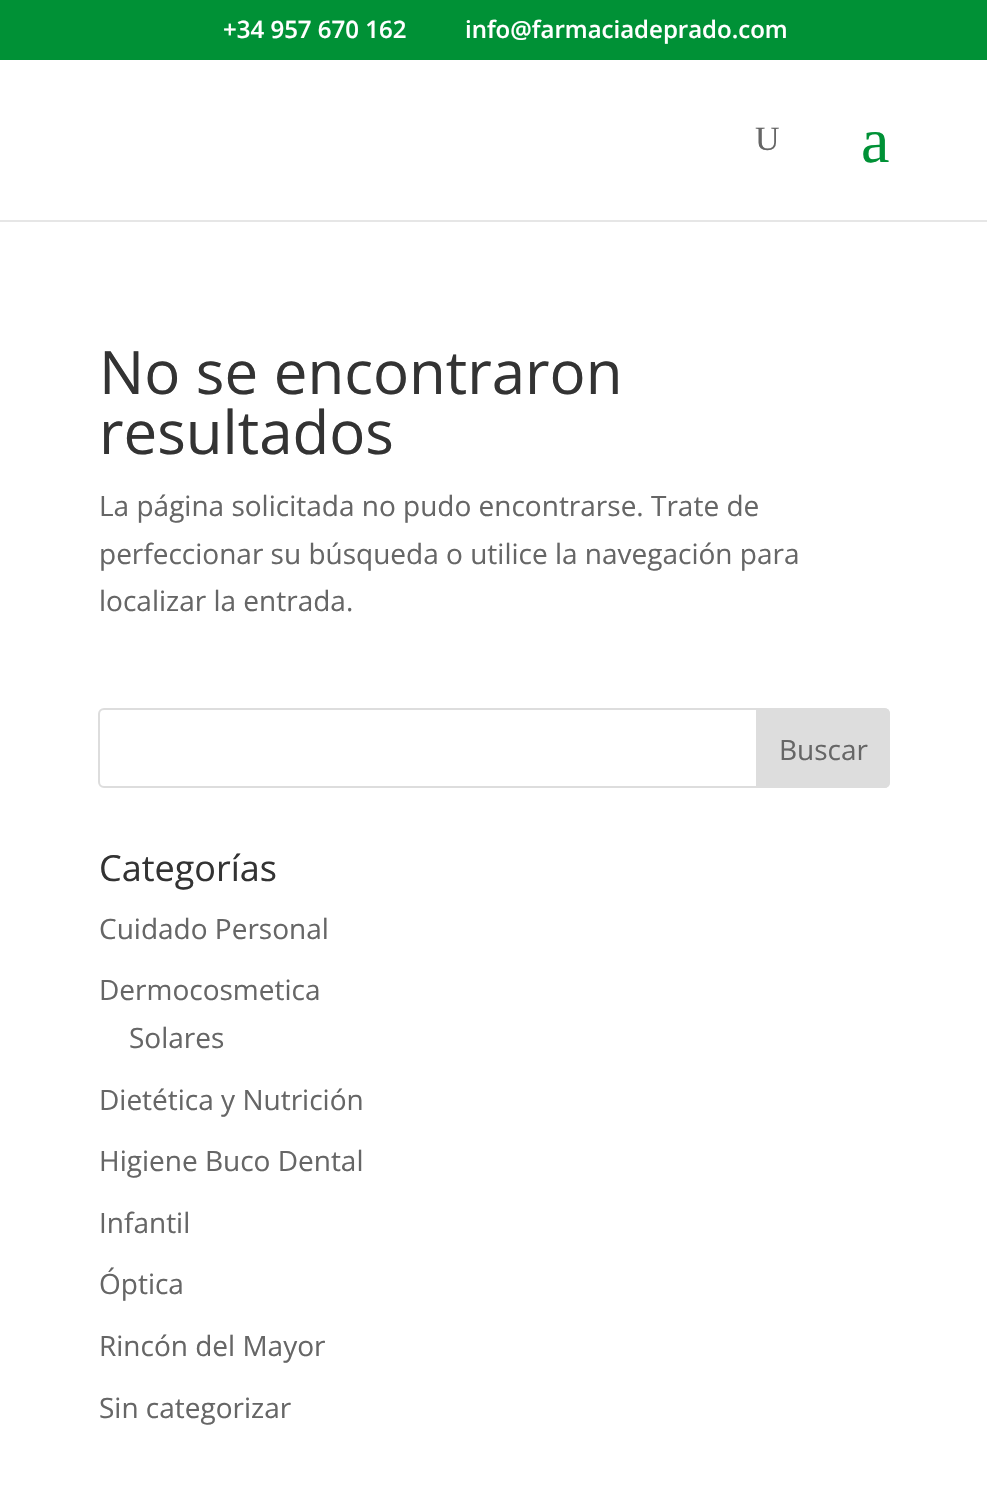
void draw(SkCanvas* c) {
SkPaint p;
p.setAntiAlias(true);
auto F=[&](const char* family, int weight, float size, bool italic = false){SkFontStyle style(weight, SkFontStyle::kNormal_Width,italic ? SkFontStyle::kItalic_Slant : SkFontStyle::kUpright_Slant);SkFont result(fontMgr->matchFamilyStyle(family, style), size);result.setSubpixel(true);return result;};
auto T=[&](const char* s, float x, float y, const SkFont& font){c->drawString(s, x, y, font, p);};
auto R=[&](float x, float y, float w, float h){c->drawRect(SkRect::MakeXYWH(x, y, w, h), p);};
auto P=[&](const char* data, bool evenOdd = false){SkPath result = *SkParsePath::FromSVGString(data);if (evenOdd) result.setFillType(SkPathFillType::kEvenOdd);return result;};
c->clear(0xffffffff);
p.setColor(0xff009136);
R(0,0,987,60);
auto f1 = F("Open Sans",600,24);
p.setColor(0xffffffff);
T("+34 957 670 162",223,38,f1);
T("info@farmaciadeprado.com",465,38,f1);
p.setColor(0xffe6e6e6);
R(0,220,987,2);
auto f2 = F("Liberation Serif",400,34);
p.setColor(0xff666666);
T("U",755,150,f2);
auto f3 = F("Liberation Serif",400,64);
p.setColor(0xff009136);
T("a",861,162,f3);
auto f4 = F("Open Sans",400,60);
p.setColor(0xff333333);
T("No se encontraron",99,394,f4);
T("resultados",99,454,f4);
auto f5 = F("Open Sans",400,28);
p.setColor(0xff666666);
T("La página solicitada no pudo encontrarse. Trate de",99,516,f5);
T("perfeccionar su búsqueda o utilice la navegación para",99,564,f5);
T("localizar la entrada.",99,611,f5);
p.setStroke(true);
p.setStrokeWidth(2);
p.setColor(0xffdddddd);
c->drawRoundRect(SkRect::MakeXYWH(99,709,790,78),5,5,p);
p.setStroke(false);
c->drawPath(P("M757 709h127c3 0 5 2 5 5v68c0 3-2 5-5 5h-127z"),p);
p.setStroke(true);
c->drawPath(P("M757 709h127c3 0 5 2 5 5v68c0 3-2 5-5 5h-127z"),p);
p.setStroke(false);
p.setColor(0xff666666);
T("Buscar",779,760,f5);
auto f6 = F("Open Sans",400,36);
p.setColor(0xff333333);
T("Categorías",99,881,f6);
p.setColor(0xff666666);
T("Cuidado Personal",99,939,f5);
T("Dermocosmetica",99,1000,f5);
T("Solares",129,1048,f5);
T("Dietética y Nutrición",99,1110,f5);
T("Higiene Buco Dental",99,1171,f5);
T("Infantil",99,1233,f5);
T("Óptica",99,1294,f5);
T("Rincón del Mayor",99,1356,f5);
T("Sin categorizar",99,1418,f5);
}
